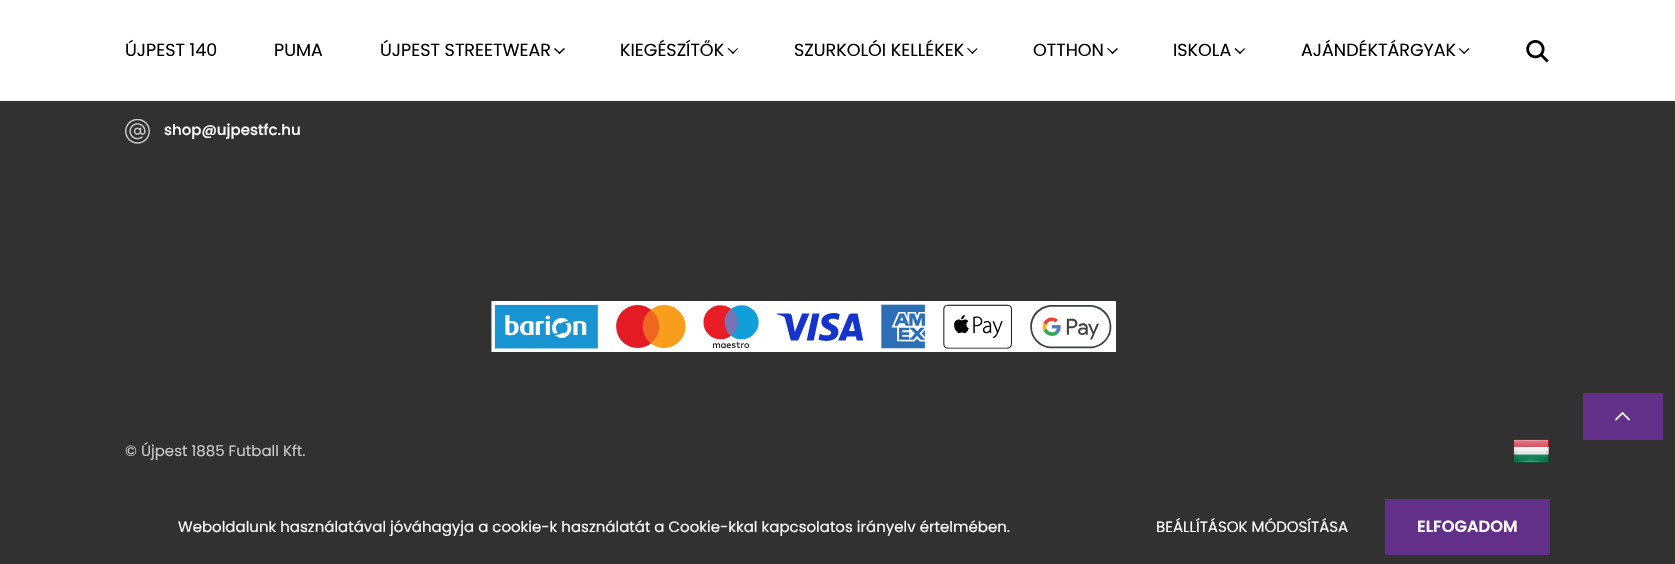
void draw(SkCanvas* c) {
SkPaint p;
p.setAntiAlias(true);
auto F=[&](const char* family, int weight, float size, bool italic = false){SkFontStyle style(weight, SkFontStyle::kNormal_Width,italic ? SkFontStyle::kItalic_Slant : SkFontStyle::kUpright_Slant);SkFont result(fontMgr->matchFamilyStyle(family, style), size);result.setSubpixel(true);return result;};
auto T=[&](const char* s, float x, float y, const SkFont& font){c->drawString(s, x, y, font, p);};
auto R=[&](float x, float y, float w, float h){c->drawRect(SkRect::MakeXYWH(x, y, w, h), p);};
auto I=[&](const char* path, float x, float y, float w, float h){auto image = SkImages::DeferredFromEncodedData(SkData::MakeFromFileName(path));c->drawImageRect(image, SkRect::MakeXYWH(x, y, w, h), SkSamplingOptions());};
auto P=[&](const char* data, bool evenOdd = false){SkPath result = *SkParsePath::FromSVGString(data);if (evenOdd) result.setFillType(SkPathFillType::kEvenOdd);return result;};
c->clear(0xff313131);
p.setColor(0xffffffff);
R(0,0,1675,100);
p.setColor(0xffeff0f1);
R(0,100,1675,1);
auto f1 = F("Poppins",400,17.5);
p.setColor(0xff000000);
T("ÚJPEST 140",125,56,f1);
T("PUMA",274,56,f1);
T("ÚJPEST STREETWEAR",380,56,f1);
c->drawPath(P("M564 48l1 1l-5.5 5l-1-1z"),p);
c->drawPath(P("M555 48l5.5 5l-1 1l-5.5-5z"),p);
T("KIEGÉSZÍTŐK",620,56,f1);
c->drawPath(P("M737.5 48l.5 .5l-5 5.5l-1-1z"),p);
c->drawPath(P("M728.5 48l5.5 5l-1 1l-5.5-5.5z"),p);
T("SZURKOLÓI KELLÉKEK",794,56,f1);
c->drawPath(P("M977 48l.5 1l-5 5l-1-1z"),p);
c->drawPath(P("M968 48l5 5l-.5 1l-5.5-5.5z"),p);
T("OTTHON",1033,56,f1);
c->drawPath(P("M1117 48l1 1l-5.5 5l-1-1z"),p);
c->drawPath(P("M1108 48l5.5 5l-1 1l-5.5-5.5z"),p);
T("ISKOLA",1173,56,f1);
c->drawPath(P("M1244.5 48l.5 1l-5 5l-1-1z"),p);
c->drawPath(P("M1235.5 48l5.5 5l-1 1l-5.5-5z"),p);
T("AJÁNDÉKTÁRGYAK",1301,56,f1);
c->drawPath(P("M1468.5 48l1 1l-5.5 5l-.5-1z"),p);
c->drawPath(P("M1459.5 48l5.5 5l-1 1l-5-5z"),p);
I("1.png",1526,40,23,23);
I("2.png",125,119,25,25);
auto f2 = F("Poppins",500,15);
p.setColor(0xffffffff);
T("shop@ujpestfc.hu",164,135,f2);
I("3.png",491,301,625,51);
auto f3 = F("Poppins",400,15);
p.setColor(0xffcacaca);
T("© Újpest 1885 Futball Kft.",125,456,f3);
I("4.png",1513,439,36,25);
p.setColor(0xff623089);
R(1583,393,80,47);
I("5.png",1615,412,15,9);
p.setColor(0xffffffff);
T("Weboldalunk használatával jóváhagyja a cookie-k használatát a Cookie-kkal kapcsolatos irányelv értelmében.",178,532,f3);
T("BEÁLLÍTÁSOK MÓDOSÍTÁSA",1156,532,f3);
p.setColor(0xff623089);
R(1385,499,165,56);
auto f4 = F("Poppins",600,16.25);
p.setColor(0xffffffff);
T("ELFOGADOM",1417,532,f4);
}
